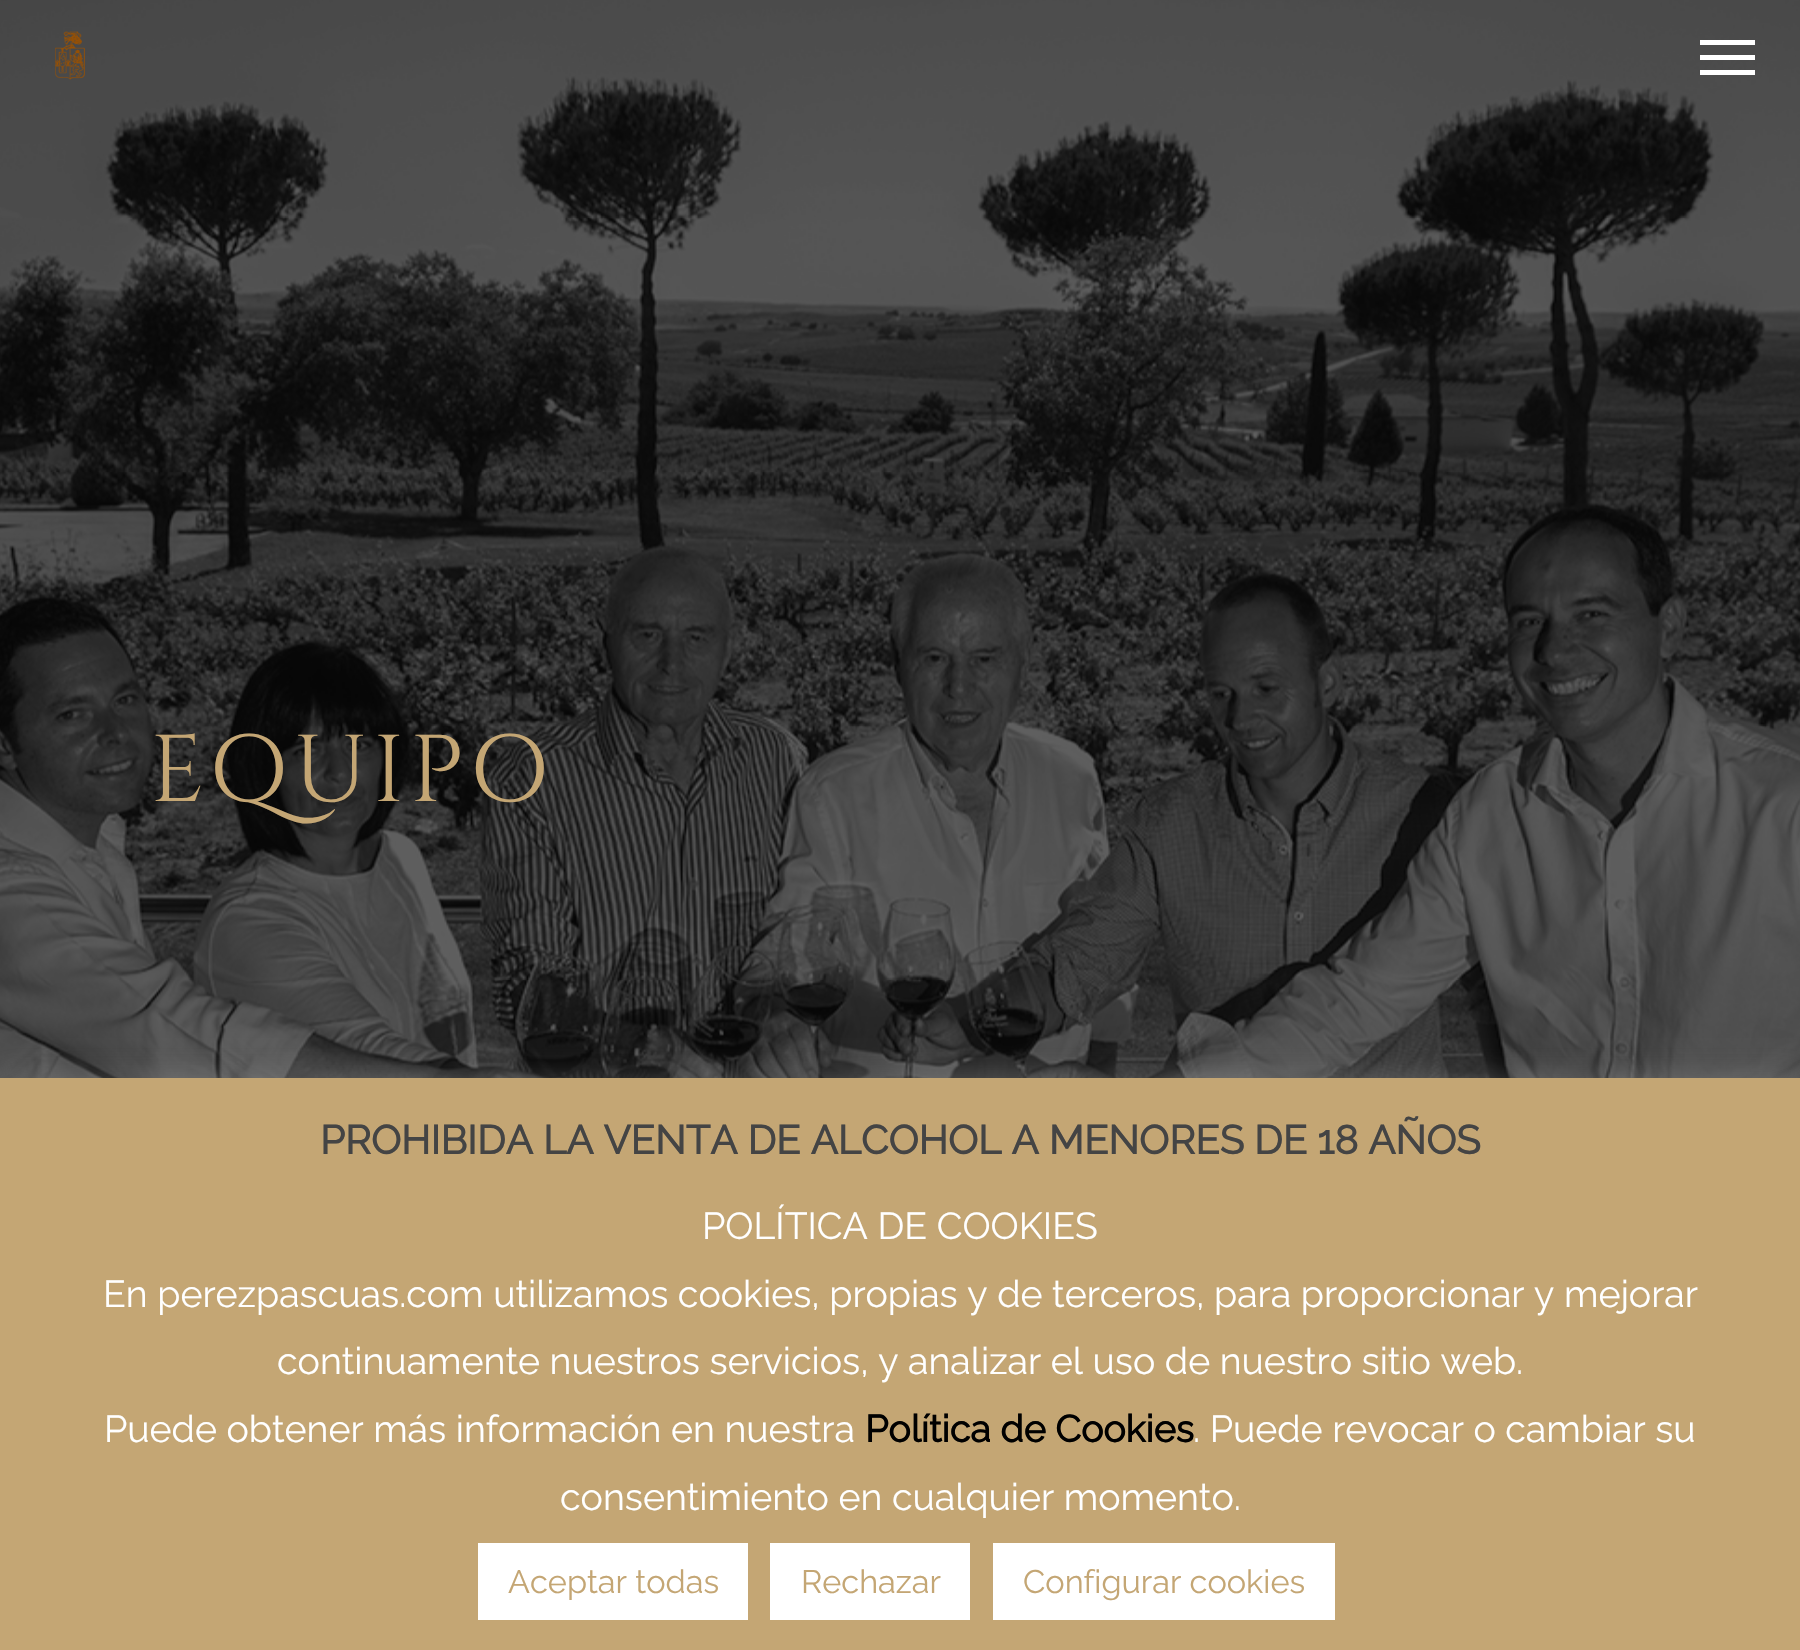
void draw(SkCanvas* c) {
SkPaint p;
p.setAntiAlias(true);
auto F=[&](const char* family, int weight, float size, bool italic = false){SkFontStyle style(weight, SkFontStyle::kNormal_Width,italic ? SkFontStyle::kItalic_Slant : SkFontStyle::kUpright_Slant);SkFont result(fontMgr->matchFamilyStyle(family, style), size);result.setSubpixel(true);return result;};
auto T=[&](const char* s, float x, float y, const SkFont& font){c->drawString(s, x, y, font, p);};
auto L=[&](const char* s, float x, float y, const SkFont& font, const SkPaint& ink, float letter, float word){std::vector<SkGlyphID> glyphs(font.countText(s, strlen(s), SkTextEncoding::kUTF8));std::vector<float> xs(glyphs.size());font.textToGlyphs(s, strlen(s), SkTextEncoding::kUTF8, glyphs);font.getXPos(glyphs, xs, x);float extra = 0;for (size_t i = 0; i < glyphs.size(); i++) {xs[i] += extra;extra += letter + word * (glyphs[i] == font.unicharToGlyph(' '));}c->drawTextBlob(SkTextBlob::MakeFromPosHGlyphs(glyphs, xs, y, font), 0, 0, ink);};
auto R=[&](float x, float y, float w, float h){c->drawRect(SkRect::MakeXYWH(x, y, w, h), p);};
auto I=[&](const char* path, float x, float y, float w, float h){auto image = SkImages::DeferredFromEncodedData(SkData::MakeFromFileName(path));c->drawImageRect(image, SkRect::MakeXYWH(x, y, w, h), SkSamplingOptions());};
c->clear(0xffffffff);
I("2.png",0,0,1800,1078);
I("1.png",55,31,30,49);
p.setColor(0xffffffff);
R(1700,40,55,5);
R(1700,70,55,5);
R(1700,55,55,5);
auto f1 = F("Cinzel",400,94.5);
p.setColor(0xffc4a674);
L("EQUIPO",150,801,f1,p,5,0);
p.setColor(0x4dacabab);
p.setMaskFilter(SkMaskFilter::MakeBlur(kNormal_SkBlurStyle, 12.5));
c->drawRect(SkRect::MakeXYWH(0,1075,1800,573),p);
p.setMaskFilter(nullptr);
p.setColor(0xffc4a674);
R(0,1078,1800,572);
auto f2 = F("Raleway",700,40);
p.setColor(0xff444444);
T("PROHIBIDA LA VENTA DE ALCOHOL A MENORES DE 18 AÑOS",320,1154,f2);
auto f3 = F("Raleway",100,37.5);
p.setColor(0xffffffff);
T("POLÍTICA DE COOKIES",702,1239,f3);
T("En perezpascuas.com utilizamos cookies, propias y de terceros, para proporcionar y mejorar",103,1307,f3);
T("continuamente nuestros servicios, y analizar el uso de nuestro sitio web.",277,1374,f3);
T("Puede obtener más información en nuestra",104,1442,f3);
auto f4 = F("Raleway",700,37.5);
p.setColor(0xff000000);
T("Política de Cookies",865,1442,f4);
p.setColor(0xffffffff);
T(". Puede revocar o cambiar su",1193,1442,f3);
T("consentimiento en cualquier momento.",560,1510,f3);
R(478,1543,270,77);
auto f5 = F("Raleway",100,32.5);
p.setColor(0xffc4a674);
T("Aceptar todas",508,1593,f5);
p.setColor(0xffffffff);
R(770,1543,200,77);
p.setColor(0xffc4a674);
T("Rechazar",801,1593,f5);
p.setColor(0xffffffff);
R(993,1543,342,77);
p.setColor(0xffc4a674);
T("Configurar cookies",1023,1593,f5);
}
